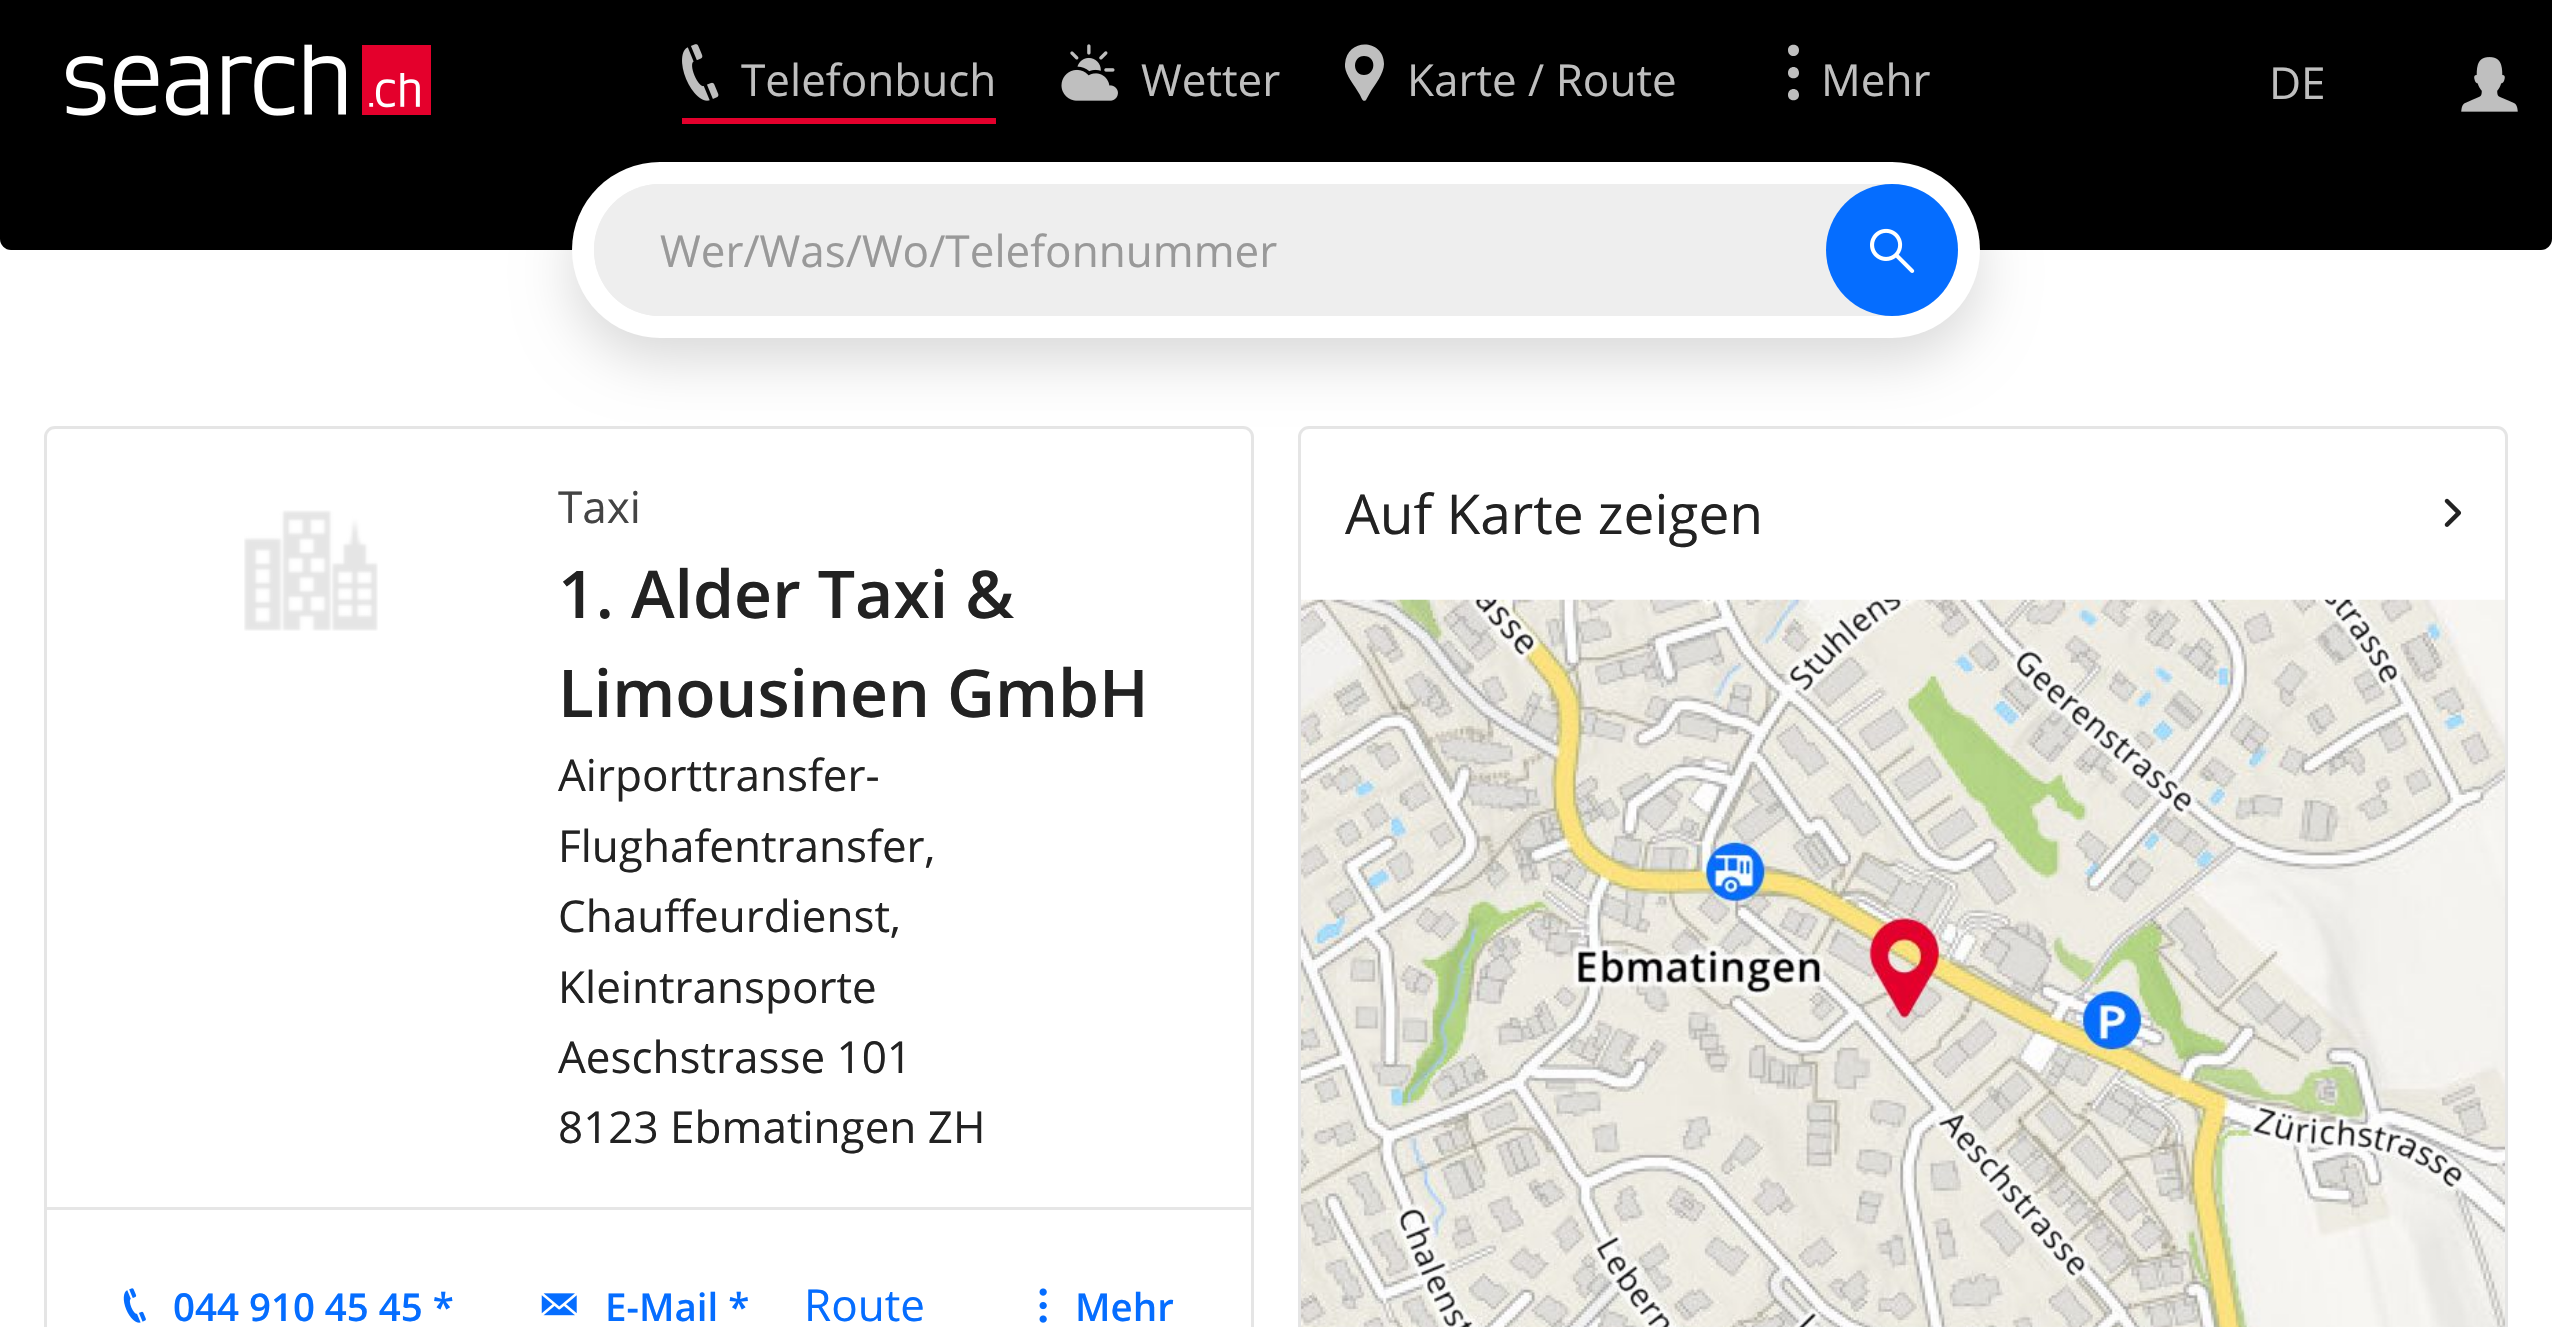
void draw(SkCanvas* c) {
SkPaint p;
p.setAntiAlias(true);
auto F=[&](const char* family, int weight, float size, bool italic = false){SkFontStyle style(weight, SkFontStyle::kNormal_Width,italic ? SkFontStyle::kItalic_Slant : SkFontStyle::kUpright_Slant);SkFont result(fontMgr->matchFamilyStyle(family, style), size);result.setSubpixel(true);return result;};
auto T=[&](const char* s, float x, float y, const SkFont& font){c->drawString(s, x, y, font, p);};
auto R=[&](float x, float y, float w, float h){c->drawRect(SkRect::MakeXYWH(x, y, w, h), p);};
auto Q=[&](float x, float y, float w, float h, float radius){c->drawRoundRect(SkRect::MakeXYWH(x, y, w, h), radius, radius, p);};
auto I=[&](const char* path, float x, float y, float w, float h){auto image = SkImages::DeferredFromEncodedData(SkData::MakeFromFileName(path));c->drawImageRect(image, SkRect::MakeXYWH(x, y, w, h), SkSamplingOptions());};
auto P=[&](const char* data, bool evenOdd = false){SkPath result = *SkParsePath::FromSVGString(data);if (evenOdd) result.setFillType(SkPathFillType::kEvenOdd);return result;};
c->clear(0xffffffff);
p.setColor(0xff000000);
R(0,0,2552,162);
I("1.png",66,44,365,72);
p.setColor(0xffe4002c);
R(682,118,314,6);
I("2.png",682,44,37,57);
auto f1 = F("Open Sans",400,44);
p.setColor(0xffbfbfbf);
T("Telefonbuch",741,96,f1);
I("3.png",1061,44,57,57);
T("Wetter",1141,96,f1);
c->drawPath(P("M1384 64c0-25-37-27-39 0c-1 8 7 18 10 23l5 8c1 2 3 8 6 5l5-9c4-6 13-18 13-27zm-20 11c-12 0-12-19 0-19c13 0 12 19 0 19z"),p);
T("Karte / Route",1407,96,f1);
c->drawPath(P("M1788 50c0 8 11 8 11 0c0-7-11-7-11 0zm0 23c0 7 11 7 11 0c0-8-11-8-11 0zm0 22c0 7 11 7 11 0c0-8-11-8-11 0z"),p);
T("Mehr",1821,96,f1);
T("DE",2269,99,f1);
I("4.png",2461,57,57,55);
p.setColor(0xff000000);
c->drawPath(P("M0 162h2552v77c0 6-5 11-11 11h-2530c-6 0-11-5-11-11z"),p);
p.setStroke(true);
p.setStrokeWidth(3);
p.setColor(0xffe5e5e5);
c->drawRoundRect(SkRect::MakeXYWH(45.5,427.5,1207,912),9.5,9.5,p);
c->drawRoundRect(SkRect::MakeXYWH(1299.5,427.5,1207,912),9.5,9.5,p);
p.setStroke(false);
p.setColor(0x26000000);
p.setMaskFilter(SkMaskFilter::MakeBlur(kNormal_SkBlurStyle, 27.5));
c->drawRoundRect(SkRect::MakeXYWH(572,184,1408,176),88,88,p);
p.setMaskFilter(nullptr);
p.setColor(0xffffffff);
Q(572,162,1408,176,88);
p.setColor(0xffeeeeee);
Q(594,184,1364,132,66);
Q(594,184,1232,132,66);
p.setColor(0xff999999);
T("Wer/Was/Wo/Telefonnummer",660,267,f1);
p.setColor(0xff056dff);
c->drawCircle(1892,250,66,p);
I("5.png",1870,228,45,45);
I("6.png",244,510,134,121);
p.setColor(0xff444444);
T("Taxi",558,523,f1);
auto f2 = F("Open Sans",600,66);
p.setColor(0xff222222);
T("1. Alder Taxi &",558,618,f2);
T("Limousinen GmbH",558,717,f2);
T("Airporttransfer-",558,791,f1);
T("Flughafentransfer,",558,862,f1);
T("Chauffeurdienst,",558,932,f1);
T("Kleintransporte",558,1003,f1);
T("Aeschstrasse 101",558,1073,f1);
T("8123 Ebmatingen ZH",558,1143,f1);
p.setColor(0xffe6e6e6);
R(47,1207,1204,3);
I("7.png",123,1288,23,35);
auto f3 = F("Open Sans",600,38.5);
p.setColor(0xff056dff);
T("044 910 45 45 *",173,1321,f3);
I("8.png",541,1293,36,23);
T("E-Mail *",605,1321,f3);
T("Route",804,1321,f1);
I("9.png",1039,1288,8,35);
T("Mehr",1075,1321,f3);
auto f4 = F("Open Sans",400,55);
p.setColor(0xff222222);
T("Auf Karte zeigen",1345,534,f4);
I("10.png",2444,498,18,29);
I("11.png",1301,599,1204,728);
}
